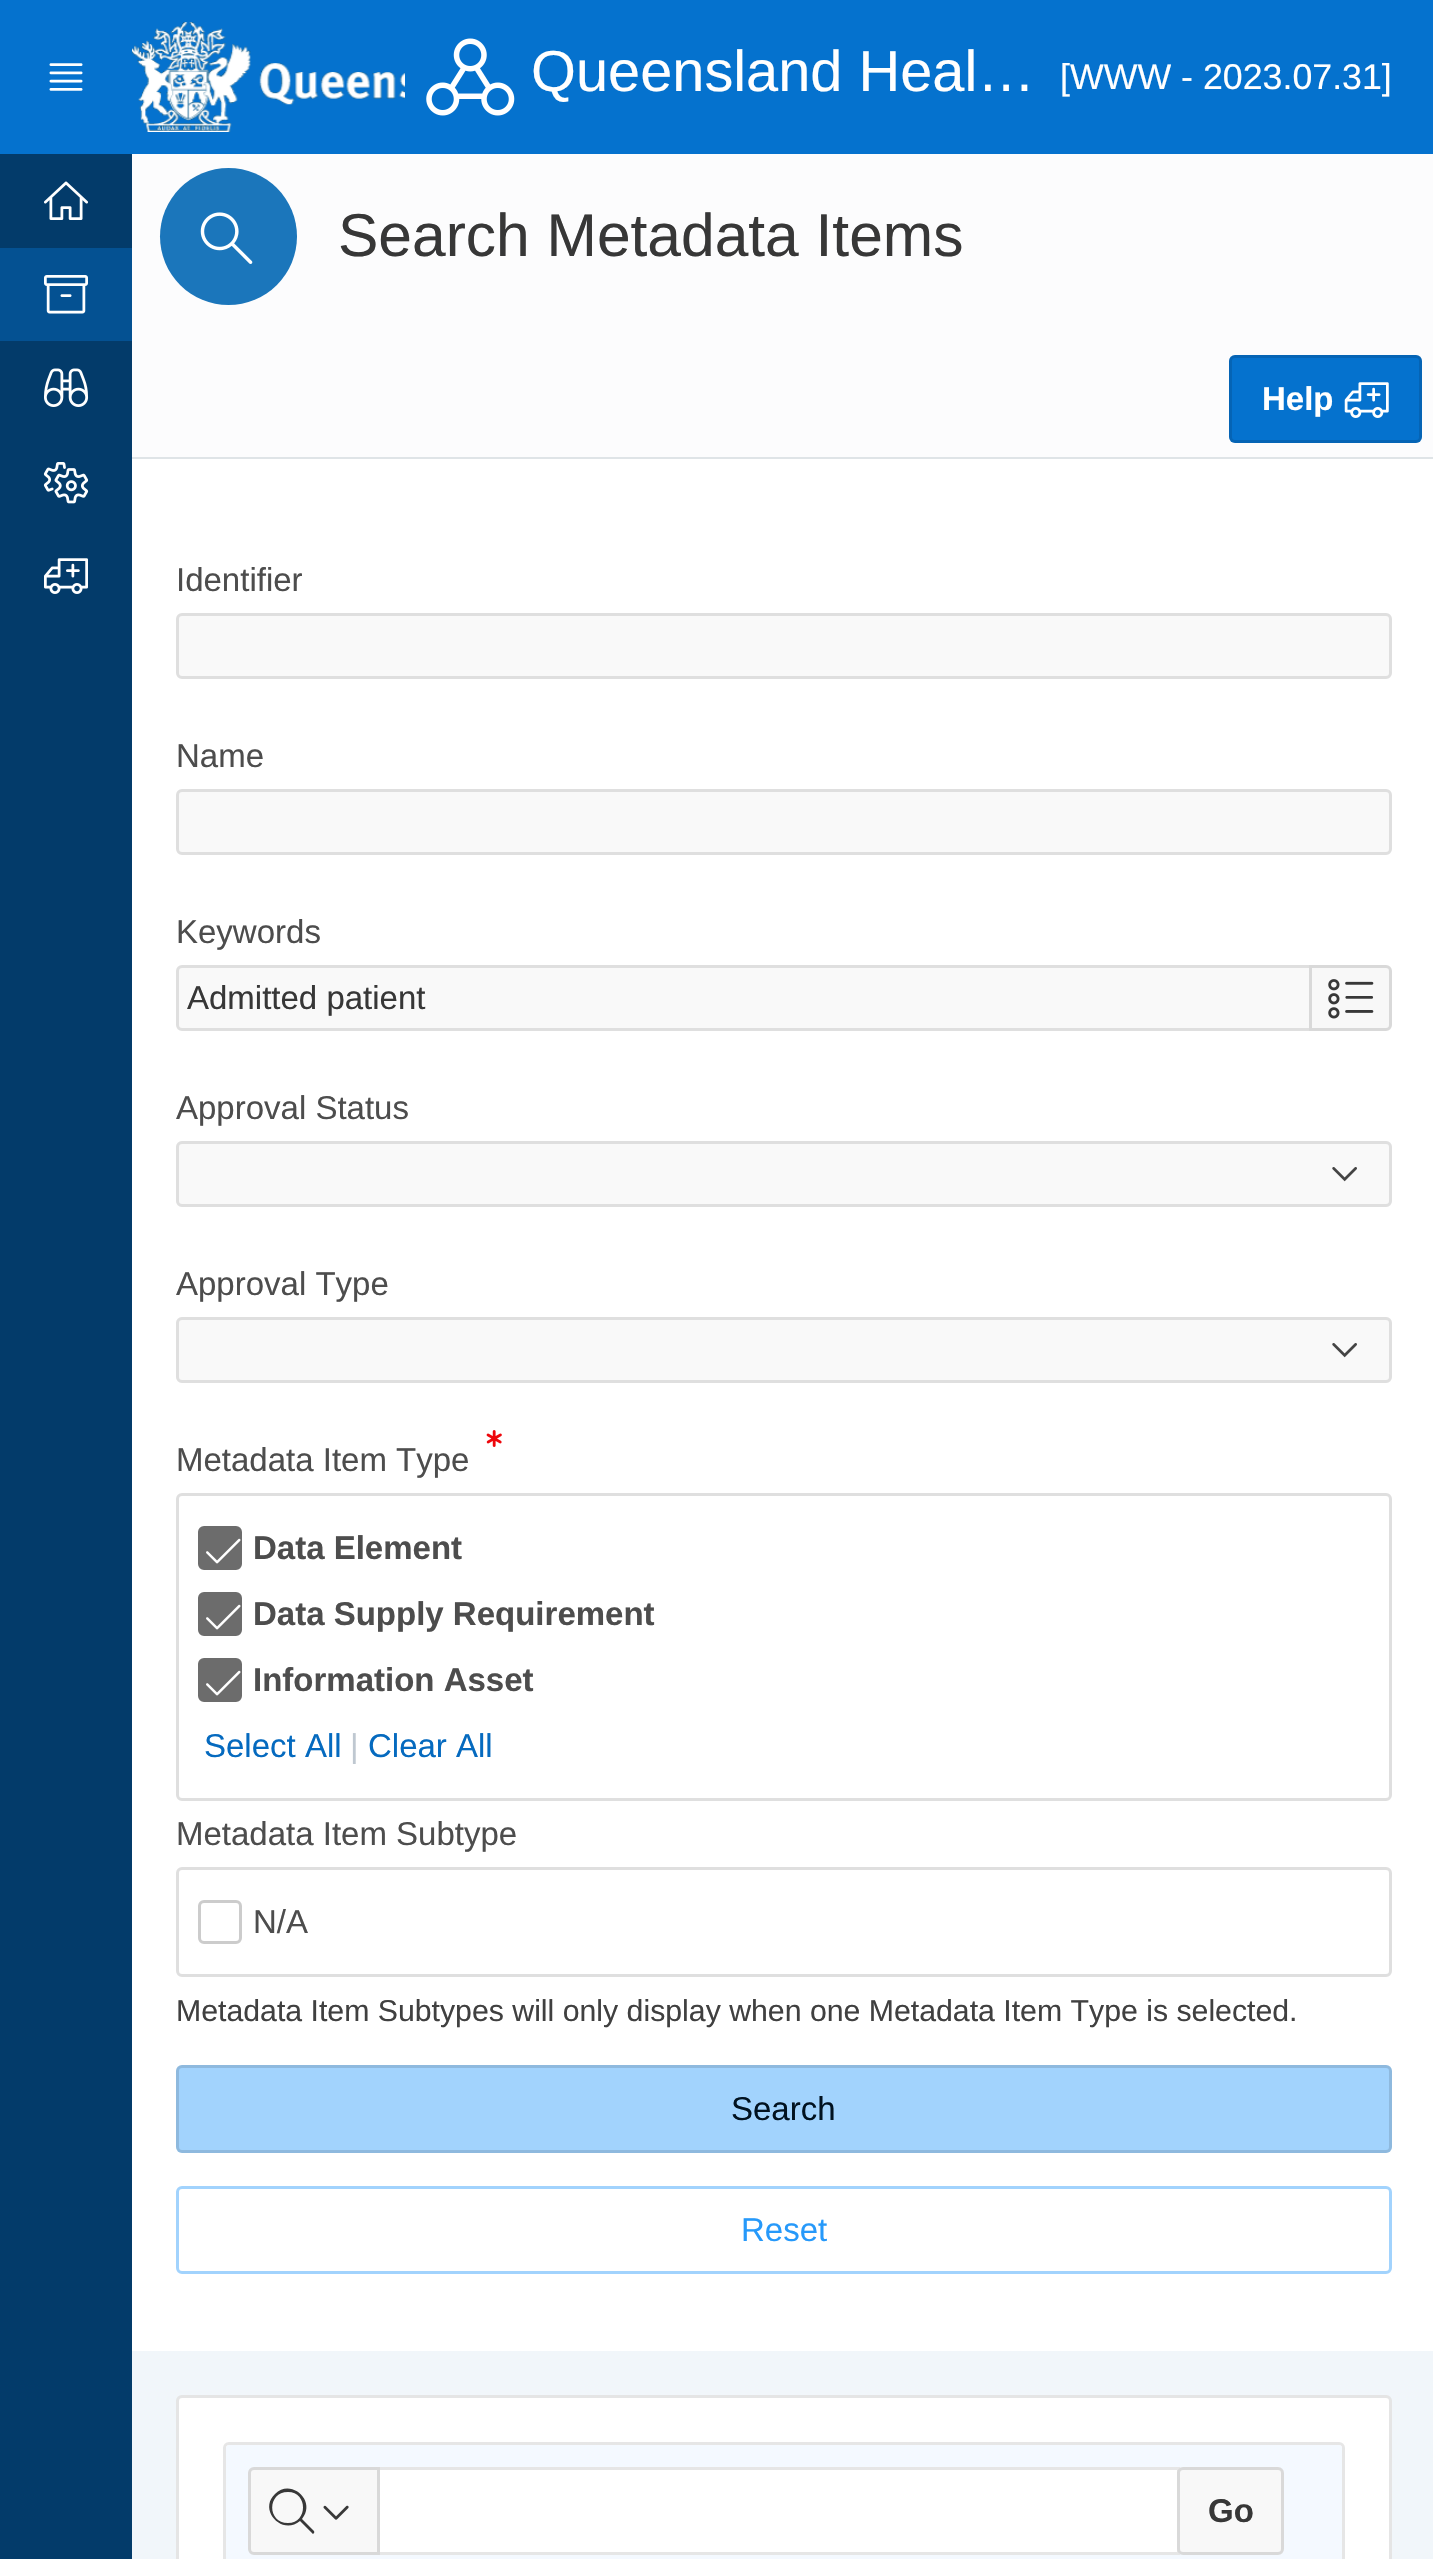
void draw(SkCanvas* c) {
SkPaint p;
p.setAntiAlias(true);
auto F=[&](const char* family, int weight, float size, bool italic = false){SkFontStyle style(weight, SkFontStyle::kNormal_Width,italic ? SkFontStyle::kItalic_Slant : SkFontStyle::kUpright_Slant);SkFont result(fontMgr->matchFamilyStyle(family, style), size);result.setSubpixel(true);return result;};
auto T=[&](const char* s, float x, float y, const SkFont& font){c->drawString(s, x, y, font, p);};
auto R=[&](float x, float y, float w, float h){c->drawRect(SkRect::MakeXYWH(x, y, w, h), p);};
auto Q=[&](float x, float y, float w, float h, float radius){c->drawRoundRect(SkRect::MakeXYWH(x, y, w, h), radius, radius, p);};
auto I=[&](const char* path, float x, float y, float w, float h){auto image = SkImages::DeferredFromEncodedData(SkData::MakeFromFileName(path));c->drawImageRect(image, SkRect::MakeXYWH(x, y, w, h), SkSamplingOptions());};
auto P=[&](const char* data, bool evenOdd = false){SkPath result = *SkParsePath::FromSVGString(data);if (evenOdd) result.setFillType(SkPathFillType::kEvenOdd);return result;};
c->clear(0xfff1f6fa);
p.setColor(0xff0572ce);
R(0,0,1433,154);
I("1.png",49,63,34,28);
I("2.png",132,22,273,110);
I("3.png",426,38,89,78);
auto f1 = F("Liberation Sans",400,57.75);
p.setColor(0xffffffff);
T("Queensland Heal…",531,91,f1);
auto f2 = F("Liberation Sans",400,35.75);
T("[WWW - 2023.07.31]",1060,89,f2);
p.setColor(0xff033b6a);
R(0,154,132,2405);
I("4.png",44,181,44,39);
p.setColor(0xff045192);
R(0,248,132,93);
I("5.png",44,275,44,39);
I("6.png",44,368,45,39);
I("7.png",43,462,46,42);
I("8.png",44,558,44,36);
p.setColor(0xfffcfcfd);
R(132,154,1301,303);
p.setColor(0xffdfe4e7);
R(132,457,1301,2);
p.setColor(0xff1b76bb);
c->drawCircle(228.5,236.5,68.5,p);
I("9.png",200,212,53,52);
auto f3 = F("Liberation Sans",400,60.5);
p.setColor(0xff373737);
T("Search Metadata Items",338,256,f3);
p.setColor(0xff0572ce);
Q(1229,355,193,88,6);
p.setStroke(true);
p.setStrokeWidth(3);
p.setColor(0x1f000000);
c->drawRoundRect(SkRect::MakeXYWH(1230.5,356.5,190,85),4.5,4.5,p);
auto f4 = F("Liberation Sans",700,33);
p.setStroke(false);
p.setColor(0xffffffff);
T("Help",1262,410,f4);
I("10.png",1344,382,45,36);
R(132,459,1301,1892);
auto f5 = F("Liberation Sans",400,33);
p.setColor(0xff4d4d4d);
T("Identifier",176,591,f5);
p.setColor(0xfff9f9f9);
c->drawRoundRect(SkRect::MakeXYWH(177.5,614.5,1213,63),4.5,4.5,p);
p.setStroke(true);
p.setColor(0xffdfdfdf);
c->drawRoundRect(SkRect::MakeXYWH(177.5,614.5,1213,63),4.5,4.5,p);
p.setStroke(false);
p.setColor(0xff4d4d4d);
T("Name",176,767,f5);
p.setColor(0xfff9f9f9);
c->drawRoundRect(SkRect::MakeXYWH(177.5,790.5,1213,63),4.5,4.5,p);
p.setStroke(true);
p.setColor(0xffdfdfdf);
c->drawRoundRect(SkRect::MakeXYWH(177.5,790.5,1213,63),4.5,4.5,p);
p.setStroke(false);
p.setColor(0xff4d4d4d);
T("Keywords",176,943,f5);
p.setColor(0xfff9f9f9);
c->drawPath(P("M182 966.5h1128.5v63h-1128.5c-2.5 0-4.5-2-4.5-4.5v-54c0-2.5 2-4.5 4.5-4.5z"),p);
p.setStroke(true);
p.setColor(0xffdfdfdf);
c->drawPath(P("M182 966.5h1128.5v63h-1128.5c-2.5 0-4.5-2-4.5-4.5v-54c0-2.5 2-4.5 4.5-4.5z"),p);
p.setStroke(false);
p.setColor(0xff373737);
T("Admitted patient",187,1009,f5);
p.setColor(0xfff8f8f8);
c->drawPath(P("M1310.5 966.5h75.5c2.5 0 4.5 2 4.5 4.5v54c0 2.5-2 4.5-4.5 4.5h-75.5z"),p);
p.setStroke(true);
p.setColor(0xffd9d9d9);
c->drawPath(P("M1310.5 966.5h75.5c2.5 0 4.5 2 4.5 4.5v54c0 2.5-2 4.5-4.5 4.5h-75.5z"),p);
I("11.png",1328,979,46,40);
p.setStroke(false);
p.setColor(0xff4d4d4d);
T("Approval Status",176,1119,f5);
p.setColor(0xfff9f9f9);
Q(176,1141,1216,66,6);
I("12.png",1332,1167,25,15);
p.setStroke(true);
p.setColor(0xffdfdfdf);
c->drawRoundRect(SkRect::MakeXYWH(177.5,1142.5,1213,63),4.5,4.5,p);
p.setStroke(false);
p.setColor(0xff4d4d4d);
T("Approval Type",176,1295,f5);
p.setColor(0xfff9f9f9);
Q(176,1317,1216,66,6);
I("12.png",1332,1343,25,15);
p.setStroke(true);
p.setColor(0xffdfdfdf);
c->drawRoundRect(SkRect::MakeXYWH(177.5,1318.5,1213,63),4.5,4.5,p);
I("13.png",486,1430,16,17);
p.setStroke(false);
p.setColor(0xff4d4d4d);
T("Metadata Item Type",176,1471,f5);
p.setStroke(true);
p.setColor(0xffdfdfdf);
c->drawRoundRect(SkRect::MakeXYWH(177.5,1494.5,1213,305),4.5,4.5,p);
p.setStroke(false);
p.setColor(0xff6c6c6c);
c->drawRoundRect(SkRect::MakeXYWH(199.5,1527.5,41,41),4.5,4.5,p);
p.setStroke(true);
c->drawRoundRect(SkRect::MakeXYWH(199.5,1527.5,41,41),4.5,4.5,p);
p.setStroke(false);
p.setColor(0xff4d4d4d);
T("Data Element",253,1559,f4);
I("14.png",206,1538,35,26);
p.setColor(0xff6c6c6c);
c->drawRoundRect(SkRect::MakeXYWH(199.5,1593.5,41,41),4.5,4.5,p);
p.setStroke(true);
c->drawRoundRect(SkRect::MakeXYWH(199.5,1593.5,41,41),4.5,4.5,p);
p.setStroke(false);
p.setColor(0xff4d4d4d);
T("Data Supply Requirement",253,1625,f4);
I("14.png",206,1604,35,26);
p.setColor(0xff6c6c6c);
c->drawRoundRect(SkRect::MakeXYWH(199.5,1659.5,41,41),4.5,4.5,p);
p.setStroke(true);
c->drawRoundRect(SkRect::MakeXYWH(199.5,1659.5,41,41),4.5,4.5,p);
p.setStroke(false);
p.setColor(0xff4d4d4d);
T("Information Asset",253,1691,f4);
I("14.png",206,1670,35,26);
p.setColor(0xff056abf);
T("Select All",204,1757,f5);
p.setColor(0xffbfc8d1);
T("|",350,1757,f5);
p.setColor(0xff056abf);
T("Clear All",368,1757,f5);
p.setColor(0xff4d4d4d);
T("Metadata Item Subtype",176,1845,f5);
p.setStroke(true);
p.setColor(0xffdfdfdf);
c->drawRoundRect(SkRect::MakeXYWH(177.5,1868.5,1213,107),4.5,4.5,p);
p.setColor(0xffcccccc);
c->drawRoundRect(SkRect::MakeXYWH(199.5,1901.5,41,41),4.5,4.5,p);
p.setStroke(false);
p.setColor(0xff4d4d4d);
T("N/A",253,1933,f5);
auto f6 = F("Liberation Sans",400,30.25);
p.setColor(0xff404040);
T("Metadata Item Subtypes will only display when one Metadata Item Type is selected.",176,2021,f6);
p.setColor(0xffa2d3fd);
Q(176,2065,1216,88,6);
p.setStroke(true);
p.setColor(0x1f000000);
c->drawRoundRect(SkRect::MakeXYWH(177.5,2066.5,1213,85),4.5,4.5,p);
p.setStroke(false);
p.setColor(0xff011220);
T("Search",731,2120,f5);
p.setStroke(true);
p.setColor(0xffa2d3fd);
c->drawRoundRect(SkRect::MakeXYWH(177.5,2187.5,1213,85),4.5,4.5,p);
p.setStroke(false);
p.setColor(0xff2699fa);
T("Reset",741,2241,f5);
p.setColor(0xffffffff);
Q(176,2395,1216,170,6);
p.setStroke(true);
p.setColor(0x1a000000);
c->drawRoundRect(SkRect::MakeXYWH(177.5,2396.5,1213,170),4.5,4.5,p);
p.setColor(0xffe6e6e6);
c->drawRoundRect(SkRect::MakeXYWH(224.5,2443.5,1119,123),4.5,4.5,p);
p.setStroke(false);
p.setColor(0xfff4f9ff);
c->drawPath(P("M229 2445h1110c1.5 0 3 1.5 3 3v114h-1116v-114c0-1.5 1.5-3 3-3z"),p);
p.setColor(0xffffffff);
c->drawRect(SkRect::MakeXYWH(378.5,2468.5,800,85),p);
p.setStroke(true);
p.setColor(0xffe6e6e6);
c->drawRect(SkRect::MakeXYWH(378.5,2468.5,800,85),p);
p.setStroke(false);
p.setColor(0xfff8f8f8);
c->drawPath(P("M254 2468.5h124.5v85h-124.5c-2.5 0-4.5-2-4.5-4.5v-76c0-2.5 2-4.5 4.5-4.5z"),p);
p.setStroke(true);
p.setColor(0xffd9d9d9);
c->drawPath(P("M254 2468.5h124.5v85h-124.5c-2.5 0-4.5-2-4.5-4.5v-76c0-2.5 2-4.5 4.5-4.5z"),p);
p.setStroke(false);
p.setColor(0xff383838);
c->drawPath(P("M314 2531l-12-12c15-18-11-41-27-25c-17 16 7 42 25 27l12 12c1 2 3 0 2-2zm-26-8c-21 0-21-31 0-31c20 0 20 31 0 31z"),p);
I("15.png",323,2505,26,15);
p.setColor(0xfff8f8f8);
Q(1177,2467,107,88,6);
p.setStroke(true);
p.setColor(0x1f000000);
c->drawRoundRect(SkRect::MakeXYWH(1178.5,2468.5,104,85),4.5,4.5,p);
p.setStroke(false);
p.setColor(0xff373737);
T("Go",1208,2522,f4);
}
